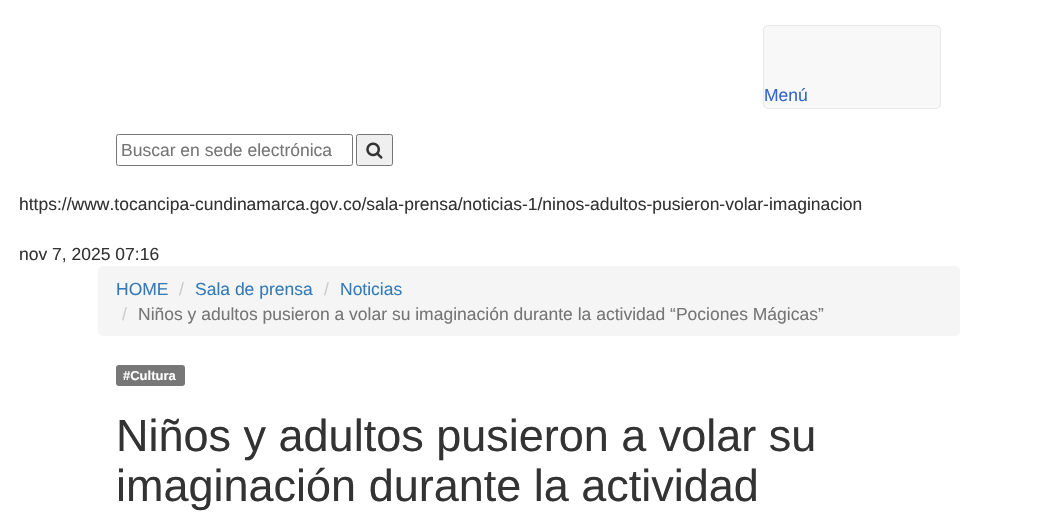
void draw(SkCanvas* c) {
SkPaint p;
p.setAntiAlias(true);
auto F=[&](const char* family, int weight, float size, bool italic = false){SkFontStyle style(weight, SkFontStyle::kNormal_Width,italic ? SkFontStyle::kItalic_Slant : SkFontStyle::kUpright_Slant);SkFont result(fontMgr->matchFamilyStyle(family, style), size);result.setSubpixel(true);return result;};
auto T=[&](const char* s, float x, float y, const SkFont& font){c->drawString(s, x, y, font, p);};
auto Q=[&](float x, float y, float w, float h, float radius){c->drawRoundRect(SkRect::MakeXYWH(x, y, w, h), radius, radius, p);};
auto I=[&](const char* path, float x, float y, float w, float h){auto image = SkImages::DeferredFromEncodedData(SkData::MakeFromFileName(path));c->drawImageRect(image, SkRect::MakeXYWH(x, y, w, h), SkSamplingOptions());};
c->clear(0xffffffff);
p.setColor(0xfff8f8f8);
c->drawRoundRect(SkRect::MakeXYWH(763.5,25.5,177,83),4.5,4.5,p);
p.setStroke(true);
p.setStrokeWidth(1);
p.setColor(0xffe7e7e7);
c->drawRoundRect(SkRect::MakeXYWH(763.5,25.5,177,83),4.5,4.5,p);
auto f1 = F("Liberation Sans",400,17.5);
p.setStroke(false);
p.setColor(0xff3366cc);
T("Menú",764,101,f1);
p.setStroke(true);
p.setColor(0xff767676);
c->drawRoundRect(SkRect::MakeXYWH(116.5,134.5,236,31),2,2,p);
p.setStroke(false);
p.setColor(0xff757575);
T("Buscar en sede electrónica",121,156,f1);
p.setColor(0xffefefef);
c->drawRoundRect(SkRect::MakeXYWH(356.5,134.5,36,31),2,2,p);
p.setStroke(true);
p.setColor(0xff767676);
c->drawRoundRect(SkRect::MakeXYWH(356.5,134.5,36,31),2,2,p);
I("1.png",366,142,17,17);
p.setStroke(false);
p.setColor(0xff333333);
T("https://www.tocancipa-cundinamarca.gov.co/sala-prensa/noticias-1/ninos-adultos-pusieron-volar-imaginacion",19,210,f1);
T("nov 7, 2025 07:16",19,260,f1);
p.setColor(0xfff5f5f5);
Q(98,266,862,70,5);
p.setColor(0xff337ab7);
T("HOME",116,295,f1);
p.setColor(0xffcccccc);
T("/",179,295,f1);
p.setColor(0xff337ab7);
T("Sala de prensa",195,295,f1);
p.setColor(0xffcccccc);
T("/",324,295,f1);
p.setColor(0xff337ab7);
T("Noticias",340,295,f1);
p.setColor(0xffcccccc);
T("/",122,320,f1);
p.setColor(0xff757575);
T("Niños y adultos pusieron a volar su imaginación durante la actividad “Pociones Mágicas”",138,320,f1);
p.setColor(0xff777777);
Q(116,365,69,21,3);
auto f2 = F("Liberation Sans",700,13);
p.setColor(0xffffffff);
T("#Cultura",123,380,f2);
auto f3 = F("Liberation Sans",400,45);
p.setColor(0xff333333);
T("Niños y adultos pusieron a volar su",116,451,f3);
T("imaginación durante la actividad",116,501,f3);
}
